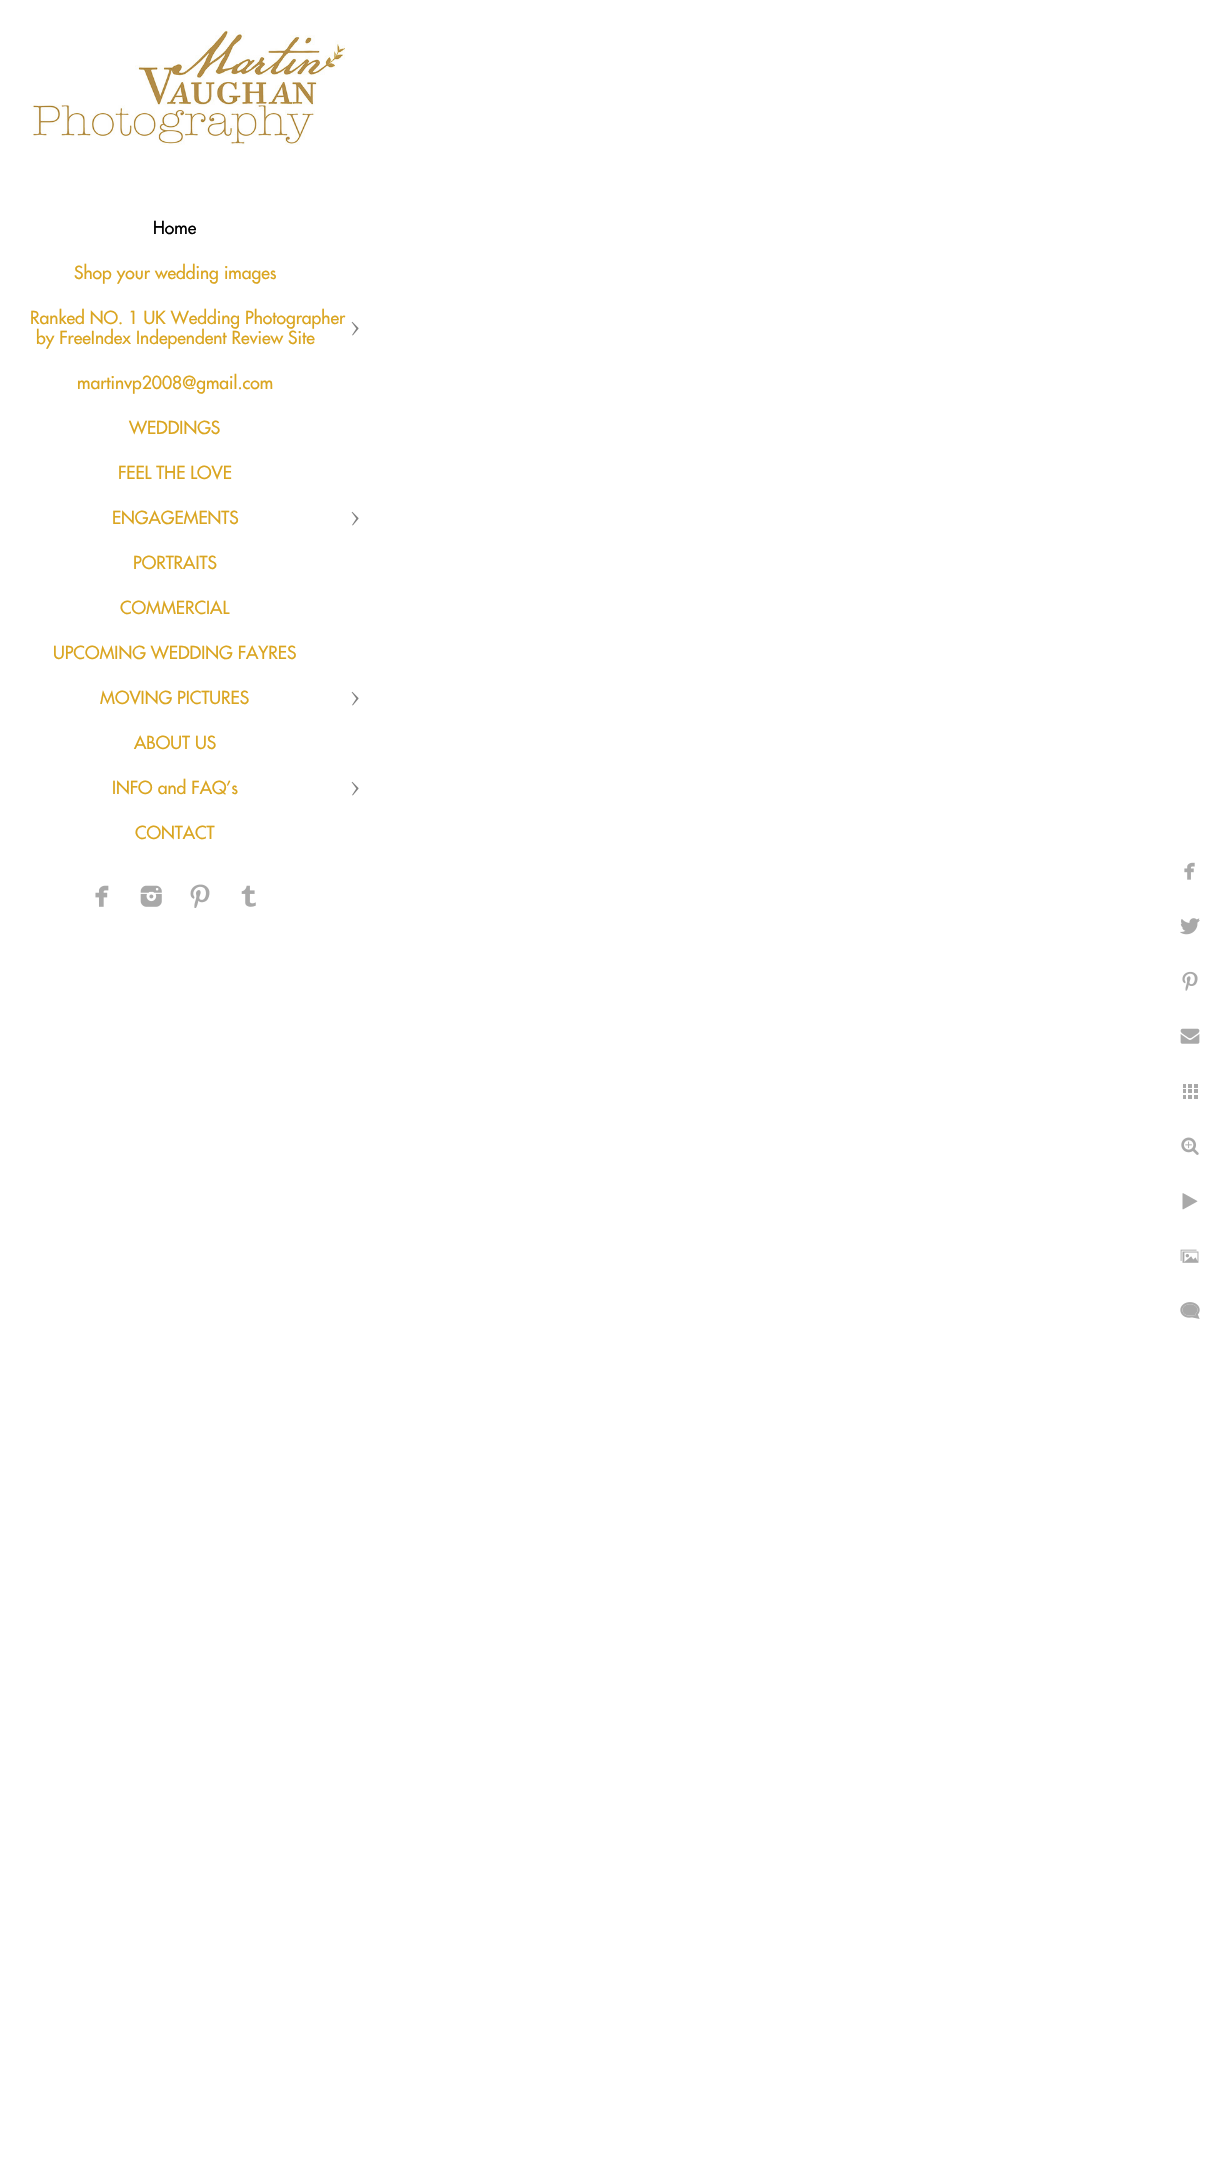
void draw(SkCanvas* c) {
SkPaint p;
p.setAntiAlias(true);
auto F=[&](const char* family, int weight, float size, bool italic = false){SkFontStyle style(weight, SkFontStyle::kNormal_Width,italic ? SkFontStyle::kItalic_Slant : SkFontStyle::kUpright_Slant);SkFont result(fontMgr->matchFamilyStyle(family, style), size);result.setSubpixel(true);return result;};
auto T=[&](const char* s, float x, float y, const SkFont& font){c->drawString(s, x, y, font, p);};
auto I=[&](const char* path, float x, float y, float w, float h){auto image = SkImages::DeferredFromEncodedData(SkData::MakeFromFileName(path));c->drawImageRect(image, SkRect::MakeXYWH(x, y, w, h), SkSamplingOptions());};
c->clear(0xffffffff);
I("1.png",30,30,315,115);
auto f1 = F("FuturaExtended",400,17.5);
p.setColor(0xff000000);
T("Home",153,234,f1);
p.setColor(0xffdaa520);
T("Shop your wedding images",74,279,f1);
T("Ranked NO. 1 UK Wedding Photographer",30,324,f1);
I("2.png",351,321,8,15);
T("by FreeIndex Independent Review Site",36,344,f1);
T("martinvp2008@gmail.com",77,389,f1);
T("WEDDINGS",129,434,f1);
T("FEEL THE LOVE",118,479,f1);
T("ENGAGEMENTS",112,524,f1);
I("2.png",351,511,8,15);
T("PORTRAITS",133,569,f1);
T("COMMERCIAL",120,614,f1);
T("UPCOMING WEDDING FAYRES",53,659,f1);
T("MOVING PICTURES",100,704,f1);
I("2.png",351,691,8,15);
T("ABOUT US",134,749,f1);
T("INFO and FAQ's",112,794,f1);
I("2.png",351,781,8,15);
T("CONTACT",135,839,f1);
I("3.png",95,885,14,22);
I("4.png",140,885,22,22);
I("5.png",190,884,20,24);
I("6.png",241,885,15,22);
I("7.png",1184,862,11,18);
I("8.png",1180,918,20,17);
I("9.png",1182,971,16,20);
I("10.png",1180,1028,20,16);
I("11.png",1183,1084,15,15);
I("12.png",1181,1137,18,18);
I("13.png",1182,1193,16,17);
I("14.png",1180,1249,19,14);
I("15.png",1180,1302,20,17);
}
